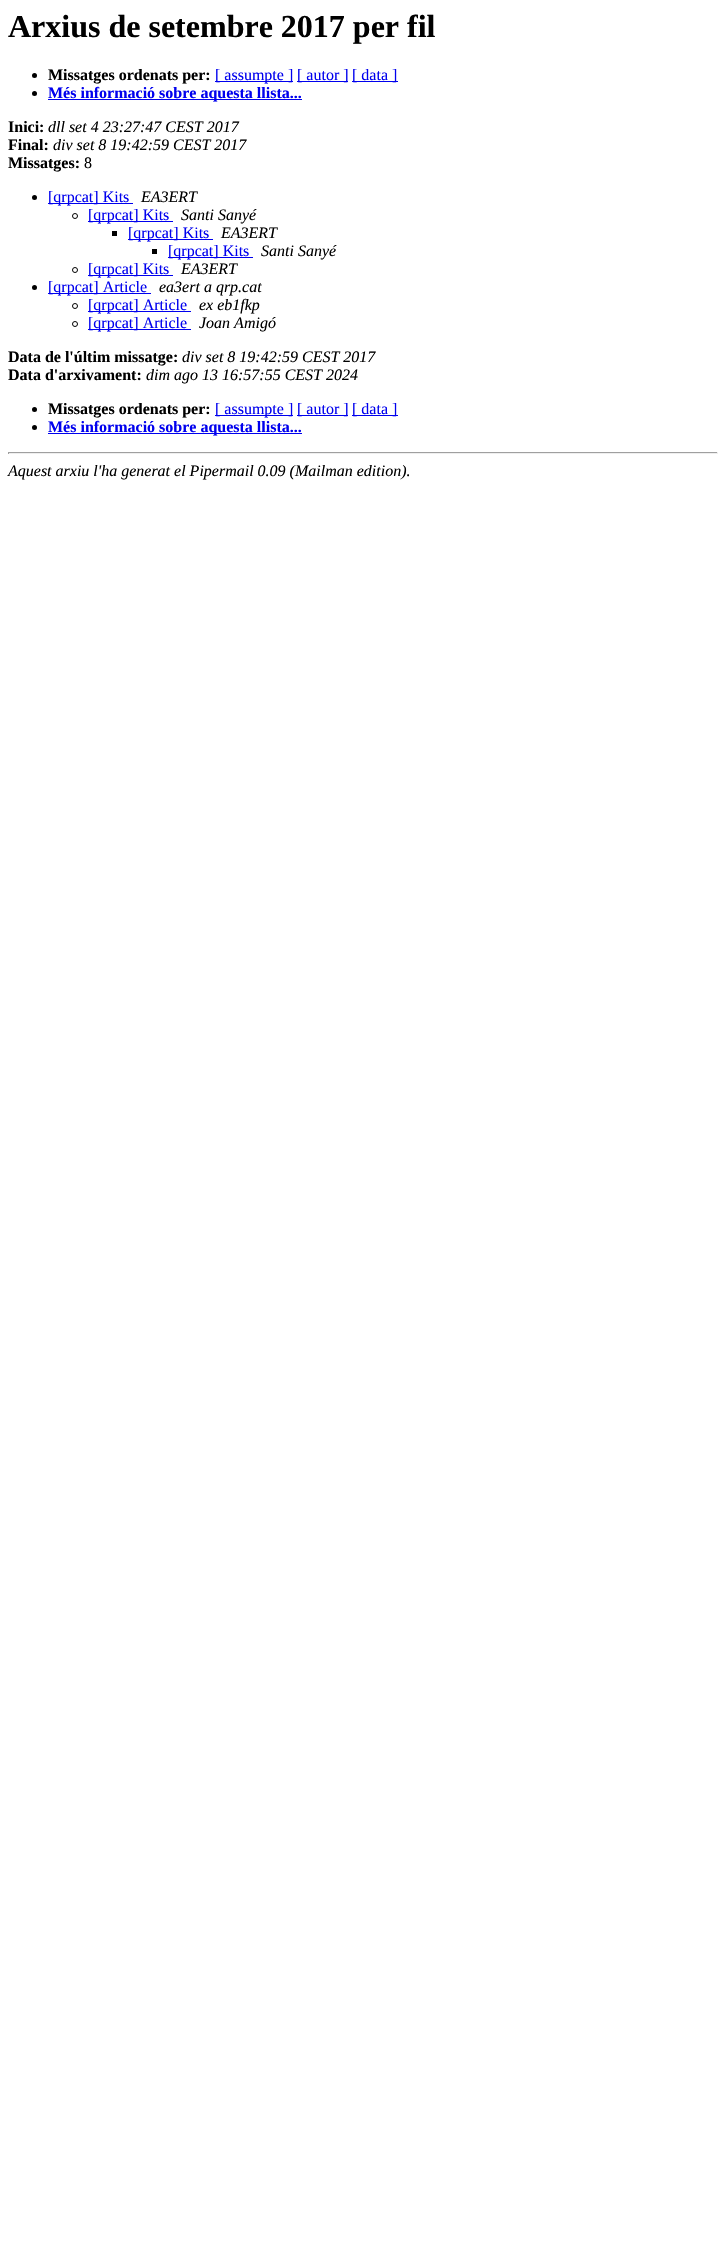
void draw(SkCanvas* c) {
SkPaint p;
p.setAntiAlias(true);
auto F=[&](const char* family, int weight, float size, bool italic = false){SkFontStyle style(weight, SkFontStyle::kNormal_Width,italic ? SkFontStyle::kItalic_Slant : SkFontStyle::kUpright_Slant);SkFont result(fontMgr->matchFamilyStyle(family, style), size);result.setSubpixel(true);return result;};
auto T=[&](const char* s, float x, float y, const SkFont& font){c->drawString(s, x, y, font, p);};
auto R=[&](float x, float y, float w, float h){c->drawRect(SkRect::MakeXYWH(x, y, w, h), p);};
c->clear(0xffffffff);
auto f1 = F("Liberation Serif",700,32);
p.setColor(0xff000000);
T("Arxius de setembre 2017 per fil",8,37,f1);
c->drawCircle(34.5,75.5,2.5,p);
auto f2 = F("Liberation Serif",700,16);
T("Missatges ordenats per:",48,80,f2);
p.setColor(0xff0000ee);
R(215,81,78,1);
auto f3 = F("Liberation Serif",400,16);
T("[ assumpte ]",215,80,f3);
R(297,81,51,1);
T("[ autor ]",297,80,f3);
R(352,81,46,1);
T("[ data ]",352,80,f3);
p.setColor(0xff000000);
c->drawCircle(34.5,93.5,2.5,p);
p.setColor(0xff0000ee);
R(48,99,254,1);
T("Més informació sobre aquesta llista...",48,98,f2);
p.setColor(0xff000000);
T("Inici:",8,132,f2);
auto f4 = F("Liberation Serif",400,16,true);
T("dll set 4 23:27:47 CEST 2017",48,132,f4);
T("Final:",8,150,f2);
T("div set 8 19:42:59 CEST 2017",53,150,f4);
T("Missatges:",8,168,f2);
T("8",84,168,f3);
c->drawCircle(34.5,197.5,2.5,p);
p.setColor(0xff0000ee);
R(48,203,85,1);
T("[qrpcat] Kits",48,202,f3);
p.setColor(0xff000000);
T("EA3ERT",141,202,f4);
p.setStroke(true);
p.setStrokeWidth(1);
c->drawCircle(75,216,2.5,p);
p.setStroke(false);
p.setColor(0xff0000ee);
R(88,221,85,1);
T("[qrpcat] Kits",88,220,f3);
p.setColor(0xff000000);
T("Santi Sanyé",181,220,f4);
R(112,231,5,5);
p.setColor(0xff0000ee);
R(128,239,85,1);
T("[qrpcat] Kits",128,238,f3);
p.setColor(0xff000000);
T("EA3ERT",221,238,f4);
R(152,249,5,5);
p.setColor(0xff0000ee);
R(168,257,85,1);
T("[qrpcat] Kits",168,256,f3);
p.setColor(0xff000000);
T("Santi Sanyé",261,256,f4);
p.setStroke(true);
c->drawCircle(75,270,2.5,p);
p.setStroke(false);
p.setColor(0xff0000ee);
R(88,275,85,1);
T("[qrpcat] Kits",88,274,f3);
p.setColor(0xff000000);
T("EA3ERT",181,274,f4);
c->drawCircle(34.5,287.5,2.5,p);
p.setColor(0xff0000ee);
R(48,293,103,1);
T("[qrpcat] Article",48,292,f3);
p.setColor(0xff000000);
T("ea3ert a qrp.cat",159,292,f4);
p.setStroke(true);
c->drawCircle(75,306,2.5,p);
p.setStroke(false);
p.setColor(0xff0000ee);
R(88,311,103,1);
T("[qrpcat] Article",88,310,f3);
p.setColor(0xff000000);
T("ex eb1fkp",199,310,f4);
p.setStroke(true);
c->drawCircle(75,324,2.5,p);
p.setStroke(false);
p.setColor(0xff0000ee);
R(88,329,103,1);
T("[qrpcat] Article",88,328,f3);
p.setColor(0xff000000);
T("Joan Amigó",199,328,f4);
T("Data de l'últim missatge:",8,362,f2);
T("div set 8 19:42:59 CEST 2017",182,362,f4);
T("Data d'arxivament:",8,380,f2);
T("dim ago 13 16:57:55 CEST 2024",146,380,f4);
c->drawCircle(34.5,409.5,2.5,p);
T("Missatges ordenats per:",48,414,f2);
p.setColor(0xff0000ee);
R(215,415,78,1);
T("[ assumpte ]",215,414,f3);
R(297,415,51,1);
T("[ autor ]",297,414,f3);
R(352,415,46,1);
T("[ data ]",352,414,f3);
p.setColor(0xff000000);
c->drawCircle(34.5,427.5,2.5,p);
p.setColor(0xff0000ee);
R(48,433,254,1);
T("Més informació sobre aquesta llista...",48,432,f2);
p.setColor(0xff9f9f9f);
R(8,452,710,1);
p.setColor(0xffeeeeee);
R(717,452,1,2);
R(8,453,710,1);
p.setColor(0xff9f9f9f);
R(8,452,1,2);
p.setColor(0xff000000);
T("Aquest arxiu l'ha generat el Pipermail 0.09 (Mailman edition).",8,476,f4);
}
